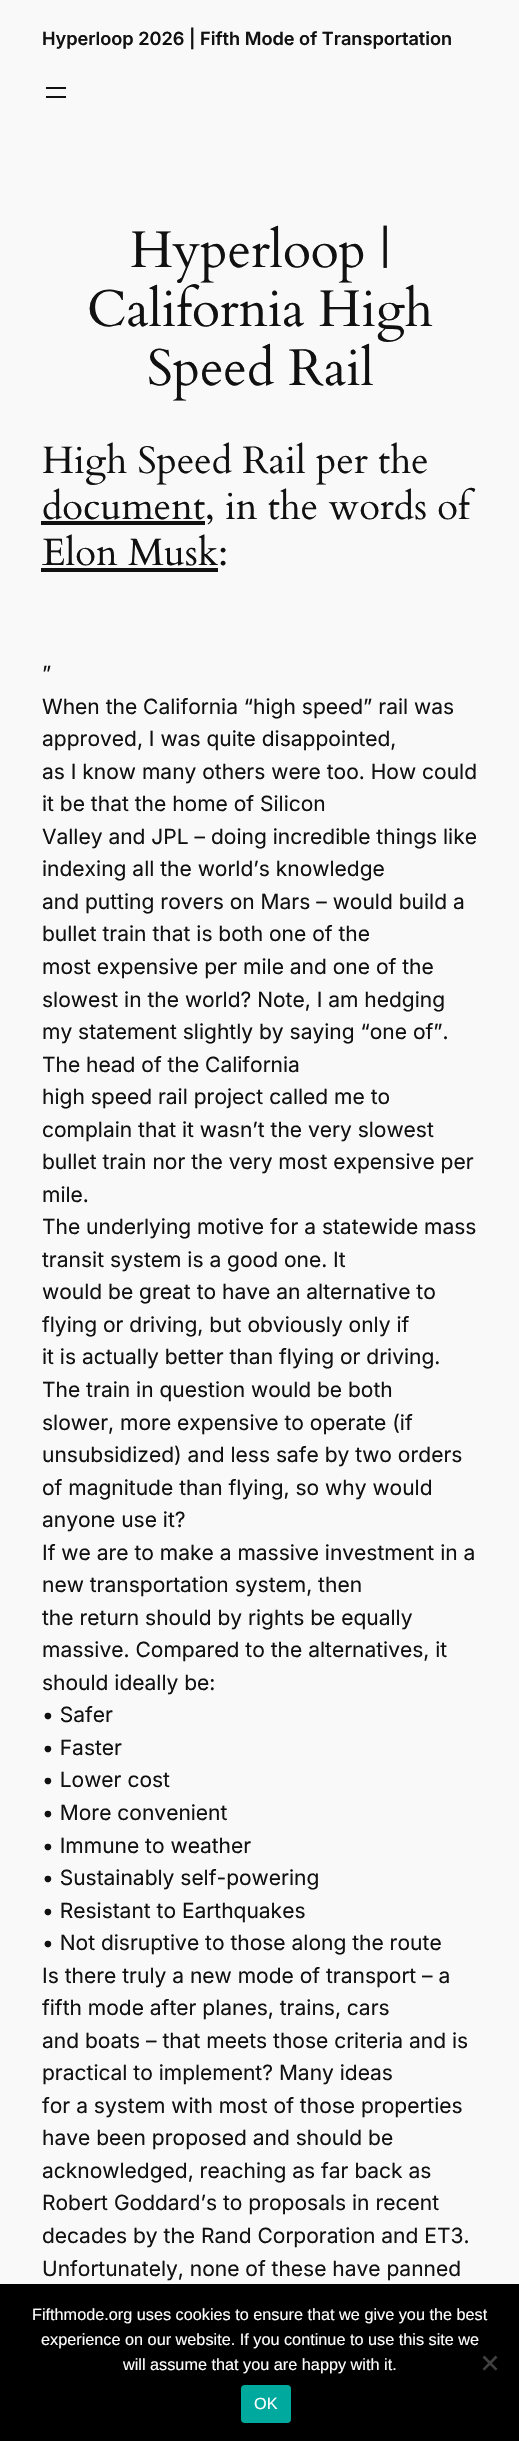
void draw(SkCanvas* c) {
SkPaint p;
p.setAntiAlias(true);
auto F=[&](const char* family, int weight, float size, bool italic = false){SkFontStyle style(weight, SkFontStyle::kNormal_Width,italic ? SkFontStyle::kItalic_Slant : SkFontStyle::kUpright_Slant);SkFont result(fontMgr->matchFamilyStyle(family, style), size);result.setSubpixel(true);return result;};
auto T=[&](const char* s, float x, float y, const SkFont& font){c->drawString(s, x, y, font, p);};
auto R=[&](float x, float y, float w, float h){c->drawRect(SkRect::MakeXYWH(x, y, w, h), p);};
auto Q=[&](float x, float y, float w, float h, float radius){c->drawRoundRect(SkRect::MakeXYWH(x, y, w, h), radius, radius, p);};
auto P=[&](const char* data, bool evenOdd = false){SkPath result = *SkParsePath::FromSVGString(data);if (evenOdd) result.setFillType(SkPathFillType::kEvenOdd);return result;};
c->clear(0xfff9f9f9);
auto f1 = F("Inter",600,18.15);
p.setColor(0xff111111);
T("Hyperloop 2026 | Fifth Mode of Transportation",42,45,f1);
R(46,87,20,2);
R(46,96,20,2);
auto f2 = F("Cardo",400,51.5);
T("Hyperloop |",130,267,f2);
T("California High",87,326,f2);
T("Speed Rail",147,385,f2);
auto f3 = F("Cardo",400,38.25);
T("High Speed Rail per the",42,473,f3);
R(41,521,164,4);
T("document, in the words of",42,519,f3);
T("Elon Musk:",42,565,f3);
R(41,568,177,4);
auto f4 = F("Inter",400,21);
T("”",42,681,f4);
T("When the California “high speed” rail was",42,714,f4);
T("approved, I was quite disappointed,",42,746,f4);
T("as I know many others were too. How could",42,779,f4);
T("it be that the home of Silicon",42,811,f4);
T("Valley and JPL – doing incredible things like",42,844,f4);
T("indexing all the world’s knowledge",42,876,f4);
T("and putting rovers on Mars – would build a",42,909,f4);
T("bullet train that is both one of the",42,941,f4);
T("most expensive per mile and one of the",42,974,f4);
T("slowest in the world? Note, I am hedging",42,1007,f4);
T("my statement slightly by saying “one of”.",42,1039,f4);
T("The head of the California",42,1072,f4);
T("high speed rail project called me to",42,1104,f4);
T("complain that it wasn’t the very slowest",42,1137,f4);
T("bullet train nor the very most expensive per",42,1169,f4);
T("mile.",42,1202,f4);
T("The underlying motive for a statewide mass",42,1234,f4);
T("transit system is a good one. It",42,1267,f4);
T("would be great to have an alternative to",42,1299,f4);
T("flying or driving, but obviously only if",42,1332,f4);
T("it is actually better than flying or driving.",42,1364,f4);
T("The train in question would be both",42,1397,f4);
T("slower, more expensive to operate (if",42,1430,f4);
T("unsubsidized) and less safe by two orders",42,1462,f4);
T("of magnitude than flying, so why would",42,1495,f4);
T("anyone use it?",42,1527,f4);
T("If we are to make a massive investment in a",42,1560,f4);
T("new transportation system, then",42,1592,f4);
T("the return should by rights be equally",42,1625,f4);
T("massive. Compared to the alternatives, it",42,1657,f4);
T("should ideally be:",42,1690,f4);
T("• Safer",42,1722,f4);
T("• Faster",42,1755,f4);
T("• Lower cost",42,1787,f4);
T("• More convenient",42,1820,f4);
T("• Immune to weather",42,1853,f4);
T("• Sustainably self-powering",42,1885,f4);
T("• Resistant to Earthquakes",42,1918,f4);
T("• Not disruptive to those along the route",42,1950,f4);
T("Is there truly a new mode of transport – a",42,1983,f4);
T("fifth mode after planes, trains, cars",42,2015,f4);
T("and boats – that meets those criteria and is",42,2048,f4);
T("practical to implement? Many ideas",42,2080,f4);
T("for a system with most of those properties",42,2113,f4);
T("have been proposed and should be",42,2145,f4);
T("acknowledged, reaching as far back as",42,2178,f4);
T("Robert Goddard’s to proposals in recent",42,2210,f4);
T("decades by the Rand Corporation and ET3.",42,2243,f4);
T("Unfortunately, none of these have panned",42,2276,f4);
p.setColor(0xff000000);
R(0,2284,519,157);
auto f5 = F("Liberation Sans",400,16.25);
p.setColor(0xffffffff);
T("Fifthmode.org uses cookies to ensure that we give you the best",32,2320,f5);
T("experience on our website. If you continue to use this site we",41,2345,f5);
T("will assume that you are happy with it.",123,2370,f5);
p.setColor(0xff404040);
c->drawPath(P("M495.5 2355.5l2 2l-13 13l-2-1.5z"),p);
c->drawPath(P("M482.5 2357.5l2-2l13 13.5l-2 1.5z"),p);
p.setColor(0xff00a99d);
Q(241,2385,50,38,4);
p.setColor(0xffffffff);
T("OK",254,2409,f5);
}
